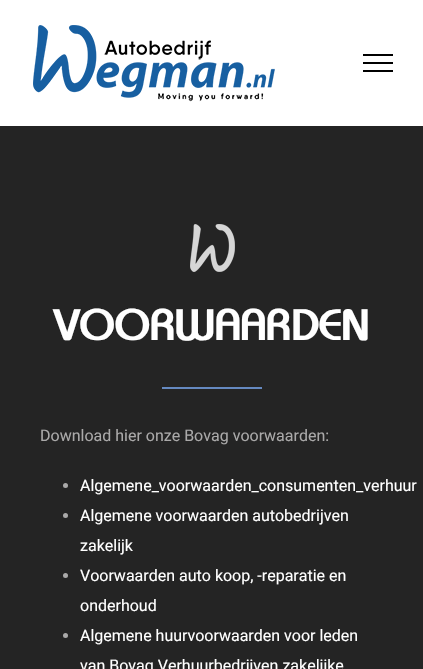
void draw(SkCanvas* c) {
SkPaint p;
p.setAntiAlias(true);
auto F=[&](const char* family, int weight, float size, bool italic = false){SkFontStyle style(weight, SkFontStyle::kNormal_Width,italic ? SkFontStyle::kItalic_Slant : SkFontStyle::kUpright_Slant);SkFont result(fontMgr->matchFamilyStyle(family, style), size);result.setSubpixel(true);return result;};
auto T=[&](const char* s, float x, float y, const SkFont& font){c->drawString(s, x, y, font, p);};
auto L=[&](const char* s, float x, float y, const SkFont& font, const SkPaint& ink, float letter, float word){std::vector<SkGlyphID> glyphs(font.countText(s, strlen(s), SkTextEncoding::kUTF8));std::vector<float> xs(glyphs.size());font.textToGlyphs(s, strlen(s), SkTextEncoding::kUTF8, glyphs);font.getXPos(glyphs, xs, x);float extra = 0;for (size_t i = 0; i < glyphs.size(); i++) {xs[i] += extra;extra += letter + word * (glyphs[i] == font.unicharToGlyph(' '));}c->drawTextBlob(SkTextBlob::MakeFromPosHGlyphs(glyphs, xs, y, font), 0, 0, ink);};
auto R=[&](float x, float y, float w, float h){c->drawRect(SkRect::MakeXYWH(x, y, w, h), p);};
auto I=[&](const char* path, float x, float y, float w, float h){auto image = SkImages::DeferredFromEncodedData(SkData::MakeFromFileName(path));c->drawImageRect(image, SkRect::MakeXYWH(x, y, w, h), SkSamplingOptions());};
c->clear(0xffffffff);
I("1.png",33,25,242,77);
p.setColor(0xff000000);
R(363,54,30,2);
R(363,62,30,2);
R(363,70,30,2);
p.setColor(0xff242424);
R(0,126,423,543);
I("2.png",190,224,45,48);
auto f1 = F("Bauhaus",700,44);
p.setColor(0xffffffff);
L("VOORWAARDEN",54,340,f1,p,-1,0);
p.setColor(0xff6589c0);
R(162,387,100,2);
auto f2 = F("Roboto",400,16);
p.setColor(0xffaaa9a9);
T("Download hier onze Bovag voorwaarden:",40,441,f2);
c->drawCircle(65.5,485.5,2.5,p);
p.setColor(0xffffffff);
T("Algemene_voorwaarden_consumenten_verhuur",80,491,f2);
p.setColor(0xffaaa9a9);
c->drawCircle(65.5,515.5,2.5,p);
p.setColor(0xffffffff);
T("Algemene voorwaarden autobedrijven",80,521,f2);
T("zakelijk",80,551,f2);
p.setColor(0xffaaa9a9);
c->drawCircle(65.5,575.5,2.5,p);
p.setColor(0xffffffff);
T("Voorwaarden auto koop, -reparatie en",80,581,f2);
T("onderhoud",80,611,f2);
p.setColor(0xffaaa9a9);
c->drawCircle(65.5,635.5,2.5,p);
p.setColor(0xffffffff);
T("Algemene huurvoorwaarden voor leden",80,641,f2);
T("van Bovag Verhuurbedrijven zakelijke",80,671,f2);
}
